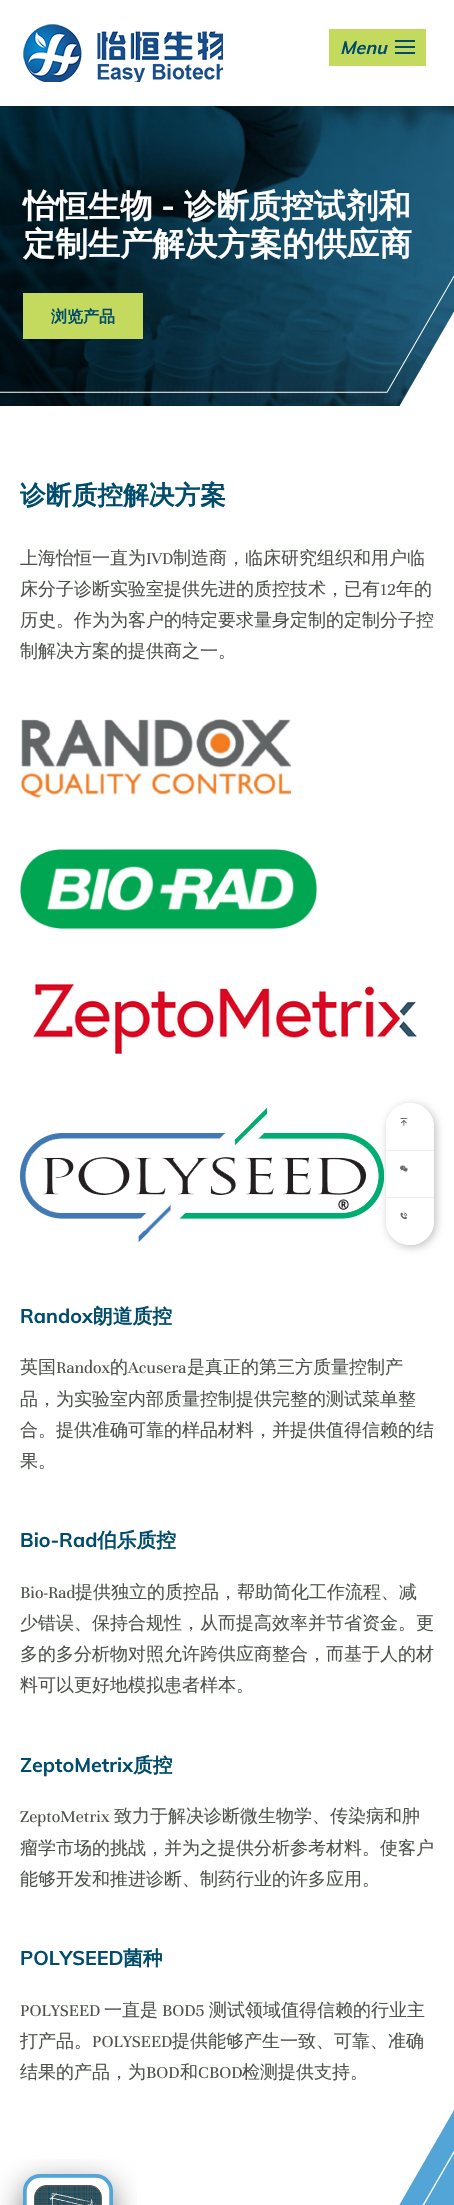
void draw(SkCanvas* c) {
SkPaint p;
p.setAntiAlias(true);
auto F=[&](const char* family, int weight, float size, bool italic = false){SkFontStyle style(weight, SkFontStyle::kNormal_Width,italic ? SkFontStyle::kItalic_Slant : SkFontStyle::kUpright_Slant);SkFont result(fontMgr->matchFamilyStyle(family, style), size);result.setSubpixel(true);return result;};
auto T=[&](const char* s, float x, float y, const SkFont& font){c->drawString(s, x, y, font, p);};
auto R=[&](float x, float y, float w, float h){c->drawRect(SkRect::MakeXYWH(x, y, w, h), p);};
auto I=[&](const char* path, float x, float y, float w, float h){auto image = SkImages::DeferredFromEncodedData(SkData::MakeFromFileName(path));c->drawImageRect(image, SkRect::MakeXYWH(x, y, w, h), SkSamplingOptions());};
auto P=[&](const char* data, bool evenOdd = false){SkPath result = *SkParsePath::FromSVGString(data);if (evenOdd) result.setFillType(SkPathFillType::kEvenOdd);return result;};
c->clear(0xffffffff);
I("1.png",23,24,200,58);
p.setColor(0xffc3da5e);
R(329,29,97,37);
auto f1 = F("Muli",700,18,true);
p.setColor(0xff004c6c);
T("Menu",340,54,f1);
R(395,40,20,2);
R(395,46,20,2);
R(395,52,20,2);
I("2.png",0,106,454,300);
auto f2 = F("WenQuanYi Zen Hei",700,32.4);
p.setColor(0xffffffff);
T("怡恒生物",23,217,f2);
auto f3 = F("Muli",700,32.4);
T("-",161,217,f3);
T("诊断质控试剂和",184,217,f2);
T("定制生产解决方案的供应商",23,255,f2);
p.setColor(0xffc3da5e);
R(23,293,120,46);
auto f4 = F("WenQuanYi Zen Hei",700,16);
p.setColor(0xff004c6c);
T("浏览产品",51,322,f4);
auto f5 = F("WenQuanYi Zen Hei",700,25.75);
T("诊断质控解决方案",20,504,f5);
auto f6 = F("WenQuanYi Zen Hei",500,18);
p.setColor(0xff4f534d);
T("上海怡恒一直为",20,564,f6);
auto f7 = F("Unna",400,18);
T("IVD",146,564,f7);
T("制造商，临床研究组织和用户临",173,564,f6);
T("床分子诊断实验室提供先进的质控技术，已有",20,595,f6);
T("12",380,595,f7);
T("年的",396,595,f6);
T("历史。作为为客户的特定要求量身定制的定制分子控",20,626,f6);
T("制解决方案的提供商之一。",20,657,f6);
I("3.png",21,719,270,79);
I("4.png",20,849,297,80);
I("5.png",33,984,384,70);
I("6.png",20,1108,364,134);
auto f8 = F("Muli",700,19.75);
p.setColor(0xff004c6c);
T("Randox",20,1323,f8);
auto f9 = F("WenQuanYi Zen Hei",700,19.75);
T("朗道质控",93,1323,f9);
p.setColor(0xff4f534d);
T("英国",20,1373,f6);
T("Randox",56,1373,f7);
T("的",110,1373,f6);
T("Acusera",128,1373,f7);
T("是真正的第三方质量控制产",187,1373,f6);
T("品，为实验室内部质量控制提供完整的测试菜单整",20,1405,f6);
T("合。提供准确可靠的样品材料，并提供值得信赖的结",20,1436,f6);
T("果。",20,1467,f6);
p.setColor(0xff004c6c);
T("Bio-Rad",20,1547,f8);
T("伯乐质控",97,1547,f9);
p.setColor(0xff4f534d);
T("Bio-Rad",20,1598,f7);
T("提供独立的质控品，帮助简化工作流程、减",75,1598,f6);
T("少错误、保持合规性，从而提高效率并节省资金。更",20,1629,f6);
T("多的多分析物对照允许跨供应商整合，而基于人的材",20,1660,f6);
T("料可以更好地模拟患者样本。",20,1691,f6);
p.setColor(0xff004c6c);
T("ZeptoMetrix",20,1772,f8);
T("质控",133,1772,f9);
p.setColor(0xff4f534d);
T("ZeptoMetrix",20,1822,f7);
T("致力于解决诊断微生物学、传染病和肿",114,1822,f6);
T("瘤学市场的挑战，并为之提供分析参考材料。使客户",20,1854,f6);
T("能够开发和推进诊断、制药行业的许多应用。",20,1885,f6);
p.setColor(0xff004c6c);
T("POLYSEED",20,1965,f8);
T("菌种",123,1965,f9);
p.setColor(0xff4f534d);
T("POLYSEED",20,2016,f7);
T("一直是",104,2016,f6);
T("BOD5",162,2016,f7);
T("测试领域值得信赖的行业主",209,2016,f6);
T("打产品。",20,2047,f6);
T("POLYSEED",92,2047,f7);
T("提供能够产生一致、可靠、准确",172,2047,f6);
T("结果的产品，为",20,2078,f6);
T("BOD",146,2078,f7);
T("和",180,2078,f6);
T("CBOD",198,2078,f7);
T("检测提供支持。",242,2078,f6);
c->save();
c->clipPath(P("M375 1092h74v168h-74zm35 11c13.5 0 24 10.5 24 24v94c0 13.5-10.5 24-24 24c-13.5 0-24-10.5-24-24v-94c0-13.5 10.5-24 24-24z",true),true);
p.setColor(0x40000000);
p.setMaskFilter(SkMaskFilter::MakeBlur(kNormal_SkBlurStyle, 4));
c->drawRoundRect(SkRect::MakeXYWH(388,1105,48,142),24,24,p);
p.setMaskFilter(nullptr);
c->restore();
p.setColor(0xffffffff);
c->drawPath(P("M410 1103c13.5 0 24 10.5 24 24v24h-48v-24c0-13.5 10.5-24 24-24z"),p);
I("7.png",400,1118,8,8);
p.setColor(0xffececec);
R(386,1150,48,1);
I("8.png",400,1165,8,7);
p.setColor(0xffffffff);
c->drawPath(P("M386 1197h48v24c0 13.5-10.5 24-24 24c-13.5 0-24-10.5-24-24z"),p);
p.setColor(0xffececec);
R(386,1197,48,1);
I("9.png",400,1212,8,8);
I("10.png",0,2159,137,46);
p.setColor(0xff53a4d7);
c->drawPath(P("M393 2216h-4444v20h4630v-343z"),p);
p.setColor(0xffffffff);
c->drawPath(P("M408 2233h-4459v-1h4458l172-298v3z"),p);
}
